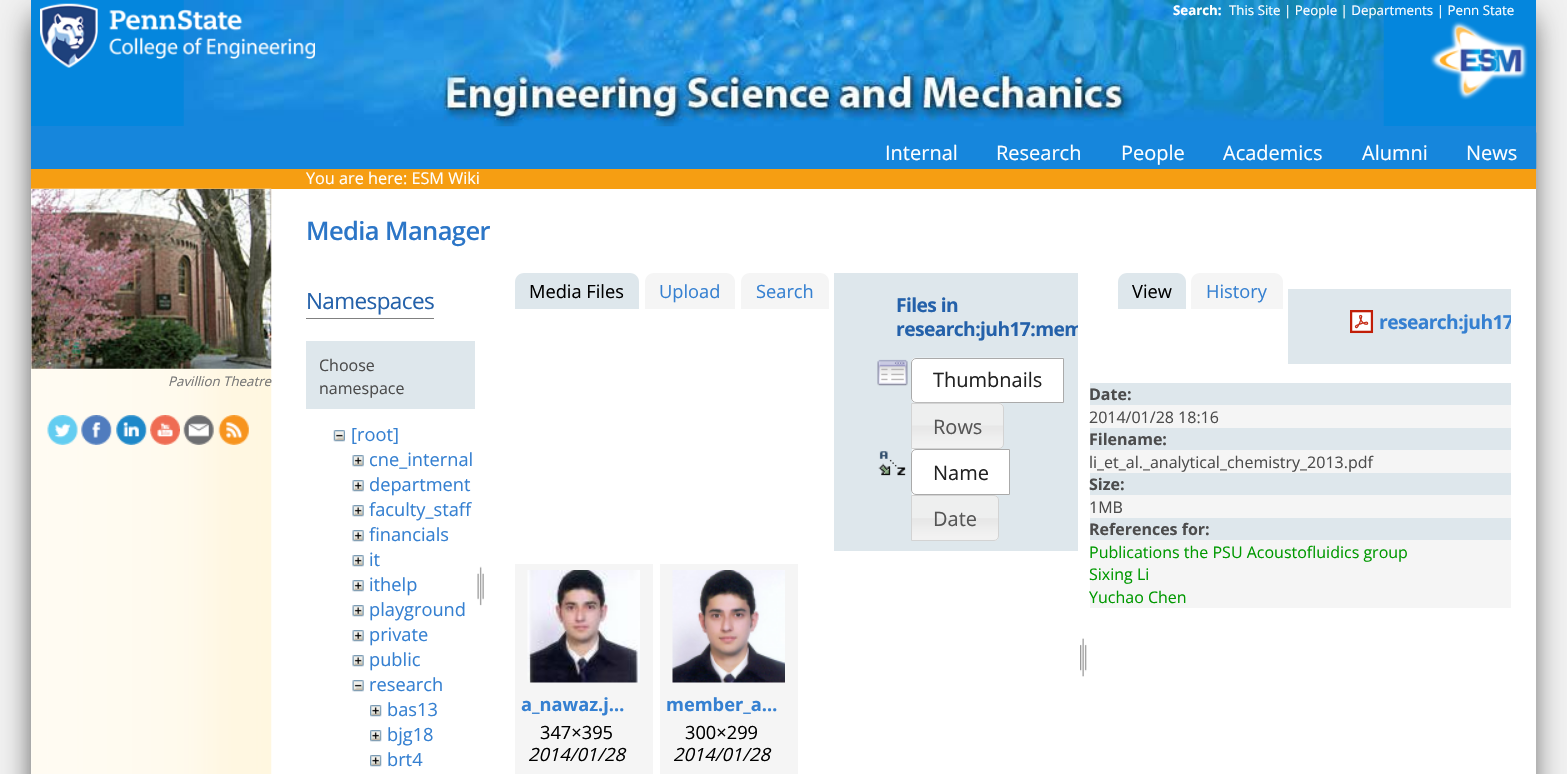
void draw(SkCanvas* c) {
SkPaint p;
p.setAntiAlias(true);
auto F=[&](const char* family, int weight, float size, bool italic = false){SkFontStyle style(weight, SkFontStyle::kNormal_Width,italic ? SkFontStyle::kItalic_Slant : SkFontStyle::kUpright_Slant);SkFont result(fontMgr->matchFamilyStyle(family, style), size);result.setSubpixel(true);return result;};
auto T=[&](const char* s, float x, float y, const SkFont& font){c->drawString(s, x, y, font, p);};
auto L=[&](const char* s, float x, float y, const SkFont& font, const SkPaint& ink, float letter, float word){std::vector<SkGlyphID> glyphs(font.countText(s, strlen(s), SkTextEncoding::kUTF8));std::vector<float> xs(glyphs.size());font.textToGlyphs(s, strlen(s), SkTextEncoding::kUTF8, glyphs);font.getXPos(glyphs, xs, x);float extra = 0;for (size_t i = 0; i < glyphs.size(); i++) {xs[i] += extra;extra += letter + word * (glyphs[i] == font.unicharToGlyph(' '));}c->drawTextBlob(SkTextBlob::MakeFromPosHGlyphs(glyphs, xs, y, font), 0, 0, ink);};
auto R=[&](float x, float y, float w, float h){c->drawRect(SkRect::MakeXYWH(x, y, w, h), p);};
auto I=[&](const char* path, float x, float y, float w, float h){auto image = SkImages::DeferredFromEncodedData(SkData::MakeFromFileName(path));c->drawImageRect(image, SkRect::MakeXYWH(x, y, w, h), SkSamplingOptions());};
auto P=[&](const char* data, bool evenOdd = false){SkPath result = *SkParsePath::FromSVGString(data);if (evenOdd) result.setFillType(SkPathFillType::kEvenOdd);return result;};
c->clear(0xfff1f1f1);
p.setColor(0xbf000000);
p.setMaskFilter(SkMaskFilter::MakeBlur(kNormal_SkBlurStyle, 15));
c->drawRect(SkRect::MakeXYWH(35,18,1495,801),p);
p.setMaskFilter(nullptr);
p.setColor(0xffffffff);
R(31,189,1505,585);
p.setColor(0xff0486dd);
R(31,0,1505,126);
p.setColor(0xff1686dc);
R(31,126,1505,43);
I("2.png",183,0,1201,127);
I("1.png",40,3,275,65);
I("3.png",1430,21,98,79);
auto f1 = F("Open Sans",700,13.3);
p.setColor(0xffffffff);
T("Search:",1173,15,f1);
auto f2 = F("Open Sans",400,13.3);
T("This Site | People | Departments | Penn State",1229,15,f2);
auto f3 = F("Open Sans",400,20);
T("Internal",885,160,f3);
T("Research",996,160,f3);
T("People",1121,160,f3);
T("Academics",1223,160,f3);
T("Alumni",1362,160,f3);
I("4.png",1536,132,1,37);
T("News",1466,160,f3);
p.setColor(0xfff69e12);
R(31,169,1505,20);
auto f4 = F("Open Sans",400,16.25);
p.setColor(0xffffffff);
T("You are here: ESM Wiki",306,184,f4);
I("5.png",31,188,241,586);
I("6.png",31,188,241,181);
auto f5 = F("Open Sans",400,13.3,true);
p.setColor(0xff777777);
T("Pavillion Theatre",168,386,f5);
I("7.png",47,415,31,30);
I("8.png",81,415,31,30);
I("9.png",116,415,31,30);
I("10.png",150,415,30,30);
I("11.png",183,415,31,30);
I("12.png",218,415,31,30);
auto f6 = F("Open Sans",600,25.5);
p.setColor(0xff2c76c7);
L("Media Manager",306,240,f6,p,-.6,0);
p.setColor(0xff808080);
R(306,318,128,1);
auto f7 = F("Open Sans",400,22.5);
p.setColor(0xff2461aa);
L("Namespaces",306,309,f7,p,-.6,0);
p.setColor(0xffdee7ec);
R(306,341,169,68);
auto f8 = F("Open Sans",400,16);
p.setColor(0xff4c4c4c);
T("Choose",319,371,f8);
T("namespace",319,394,f8);
I("13.png",333,430,12,12);
auto f9 = F("Open Sans",400,18.25);
p.setColor(0xff3580d1);
T("[root]",351,441,f9);
I("14.png",352,455,12,12);
T("cne_internal",369,466,f9);
I("14.png",352,480,12,12);
T("department",369,491,f9);
I("14.png",352,505,12,12);
T("faculty_staff",369,516,f9);
I("14.png",352,530,12,12);
T("financials",369,541,f9);
I("14.png",352,555,12,12);
T("it",369,566,f9);
I("14.png",352,580,12,12);
T("ithelp",369,591,f9);
I("14.png",352,605,12,12);
T("playground",369,616,f9);
I("14.png",352,630,12,12);
T("private",369,641,f9);
I("14.png",352,655,12,12);
T("public",369,666,f9);
I("15.png",352,680,12,12);
T("research",369,691,f9);
I("16.png",370,705,12,12);
T("bas13",387,716,f9);
I("16.png",370,730,12,12);
T("bjg18",387,741,f9);
I("16.png",370,755,12,12);
T("brt4",387,766,f9);
I("17.png",477,566,7,40);
p.setColor(0xffdee7ec);
c->drawPath(P("M524 273h106c5 0 9 4 9 9v27h-124v-27c0-5 4-9 9-9z"),p);
p.setColor(0xff000000);
T("Media Files",529,298,f9);
p.setColor(0xfff5f5f5);
c->drawPath(P("M654 273h72c5 0 9 4 9 9v27h-90v-27c0-5 4-9 9-9z"),p);
p.setColor(0xff3580d1);
T("Upload",659,298,f9);
p.setColor(0xfff5f5f5);
c->drawPath(P("M750 273h70c5 0 9 4 9 9v27h-88v-27c0-5 4-9 9-9z"),p);
p.setColor(0xff3580d1);
T("Search",756,298,f9);
p.setColor(0xffdee7ec);
R(834,273,244,278);
auto f10 = F("Open Sans",700,19.25);
p.setColor(0xff2461aa);
L("Files in",896,312,f10,p,-.6,0);
c->save();
c->clipRect(SkRect::MakeXYWH(834,273,244,278));
L("research:juh17:mem",896,336,f10,p,-.6,0);
c->restore();
I("18.png",877,359,31,27);
p.setColor(0xffffffff);
c->drawPath(P("M916 358h148v45h-148c-3 0-5-2-5-5v-35c0-3 2-5 5-5z"),p);
I("19.png",911,357,153,4);
p.setStroke(true);
p.setStrokeWidth(1);
p.setColor(0xffaaaaaa);
c->drawPath(P("M916 358.5h147.5v44h-147.5c-2.5 0-4.5-2-4.5-4.5v-35c0-2.5 2-4.5 4.5-4.5z"),p);
p.setStroke(false);
p.setColor(0xff212121);
T("Thumbnails",933,387,f3);
I("20.png",911,402,93,47);
p.setStroke(true);
p.setColor(0xffd3d3d3);
c->drawPath(P("M911.5 403.5h87.5c2.5 0 4.5 2 4.5 4.5v36c0 2.5-2 4.5-4.5 4.5h-87.5z"),p);
p.setStroke(false);
p.setColor(0xff555555);
T("Rows",933,434,f3);
I("21.png",878,451,28,25);
p.setColor(0xffffffff);
c->drawPath(P("M916 449h94v46h-94c-3 0-5-2-5-5v-36c0-3 2-5 5-5z"),p);
R(912,449,3,46);
p.setStroke(true);
p.setColor(0xffaaaaaa);
c->drawPath(P("M916 449.5h93.5v45h-93.5c-2.5 0-4.5-2-4.5-4.5v-36c0-2.5 2-4.5 4.5-4.5z"),p);
p.setStroke(false);
p.setColor(0xff212121);
T("Name",933,480,f3);
I("22.png",912,495,87,46);
p.setStroke(true);
p.setColor(0xffd3d3d3);
c->drawPath(P("M911.5 495.5h82.5c2.5 0 4.5 2 4.5 4.5v36c0 2.5-2 4.5-4.5 4.5h-82.5z"),p);
p.setStroke(false);
p.setColor(0xff555555);
T("Date",933,526,f3);
I("23.png",1080,638,7,39);
p.setColor(0xfff5f5f5);
R(515,564,138,210);
I("24.png",527,570,113,113);
auto f11 = F("Open Sans",700,18.25);
p.setColor(0xff3580d1);
T("a_nawaz.j…",521,711,f11);
p.setColor(0xff000000);
T("347×395",540,739,f9);
auto f12 = F("Open Sans",400,18.25,true);
T("2014/01/28",528,761,f12);
p.setColor(0xfff5f5f5);
R(660,564,138,210);
I("25.png",672,570,113,113);
p.setColor(0xff3580d1);
T("member_a…",666,711,f11);
p.setColor(0xff000000);
T("300×299",685,739,f9);
T("2014/01/28",673,761,f12);
p.setColor(0xffdee7ec);
c->drawPath(P("M1127 273h50c5 0 9 4 9 9v27h-68v-27c0-5 4-9 9-9z"),p);
p.setColor(0xff000000);
T("View",1132,298,f9);
p.setColor(0xfff5f5f5);
c->drawPath(P("M1200 273h74c5 0 9 4 9 9v27h-92v-27c0-5 4-9 9-9z"),p);
p.setColor(0xff3580d1);
T("History",1206,298,f9);
p.setColor(0xffdee7ec);
R(1288,289,223,75);
I("26.png",1350,310,24,24);
c->save();
c->clipRect(SkRect::MakeXYWH(1288,289,223,75));
p.setColor(0xff3580d1);
L("research:juh17",1379,329,f10,p,-.6,0);
c->restore();
p.setColor(0xffdee7ec);
R(1090,383,421,22);
auto f13 = F("Open Sans",700,16);
p.setColor(0xff4c4c4c);
T("Date:",1089,400,f13);
p.setColor(0xfff5f5f5);
R(1090,405,421,23);
p.setColor(0xff4c4c4c);
T("2014/01/28 18:16",1089,423,f8);
p.setColor(0xffdee7ec);
R(1090,428,421,22);
p.setColor(0xff4c4c4c);
T("Filename:",1089,445,f13);
p.setColor(0xfff5f5f5);
R(1090,450,421,23);
p.setColor(0xff4c4c4c);
T("li_et_al._analytical_chemistry_2013.pdf",1089,468,f8);
p.setColor(0xffdee7ec);
R(1090,473,421,22);
p.setColor(0xff4c4c4c);
T("Size:",1089,490,f13);
p.setColor(0xfff5f5f5);
R(1090,495,421,23);
p.setColor(0xff4c4c4c);
T("1MB",1089,513,f8);
p.setColor(0xffdee7ec);
R(1090,518,421,22);
p.setColor(0xff4c4c4c);
T("References for:",1089,535,f13);
p.setColor(0xfff5f5f5);
R(1090,540,421,68);
p.setColor(0xff009900);
T("Publications the PSU Acoustofluidics group",1089,558,f8);
T("Sixing Li",1089,580,f8);
T("Yuchao Chen",1089,603,f8);
}
